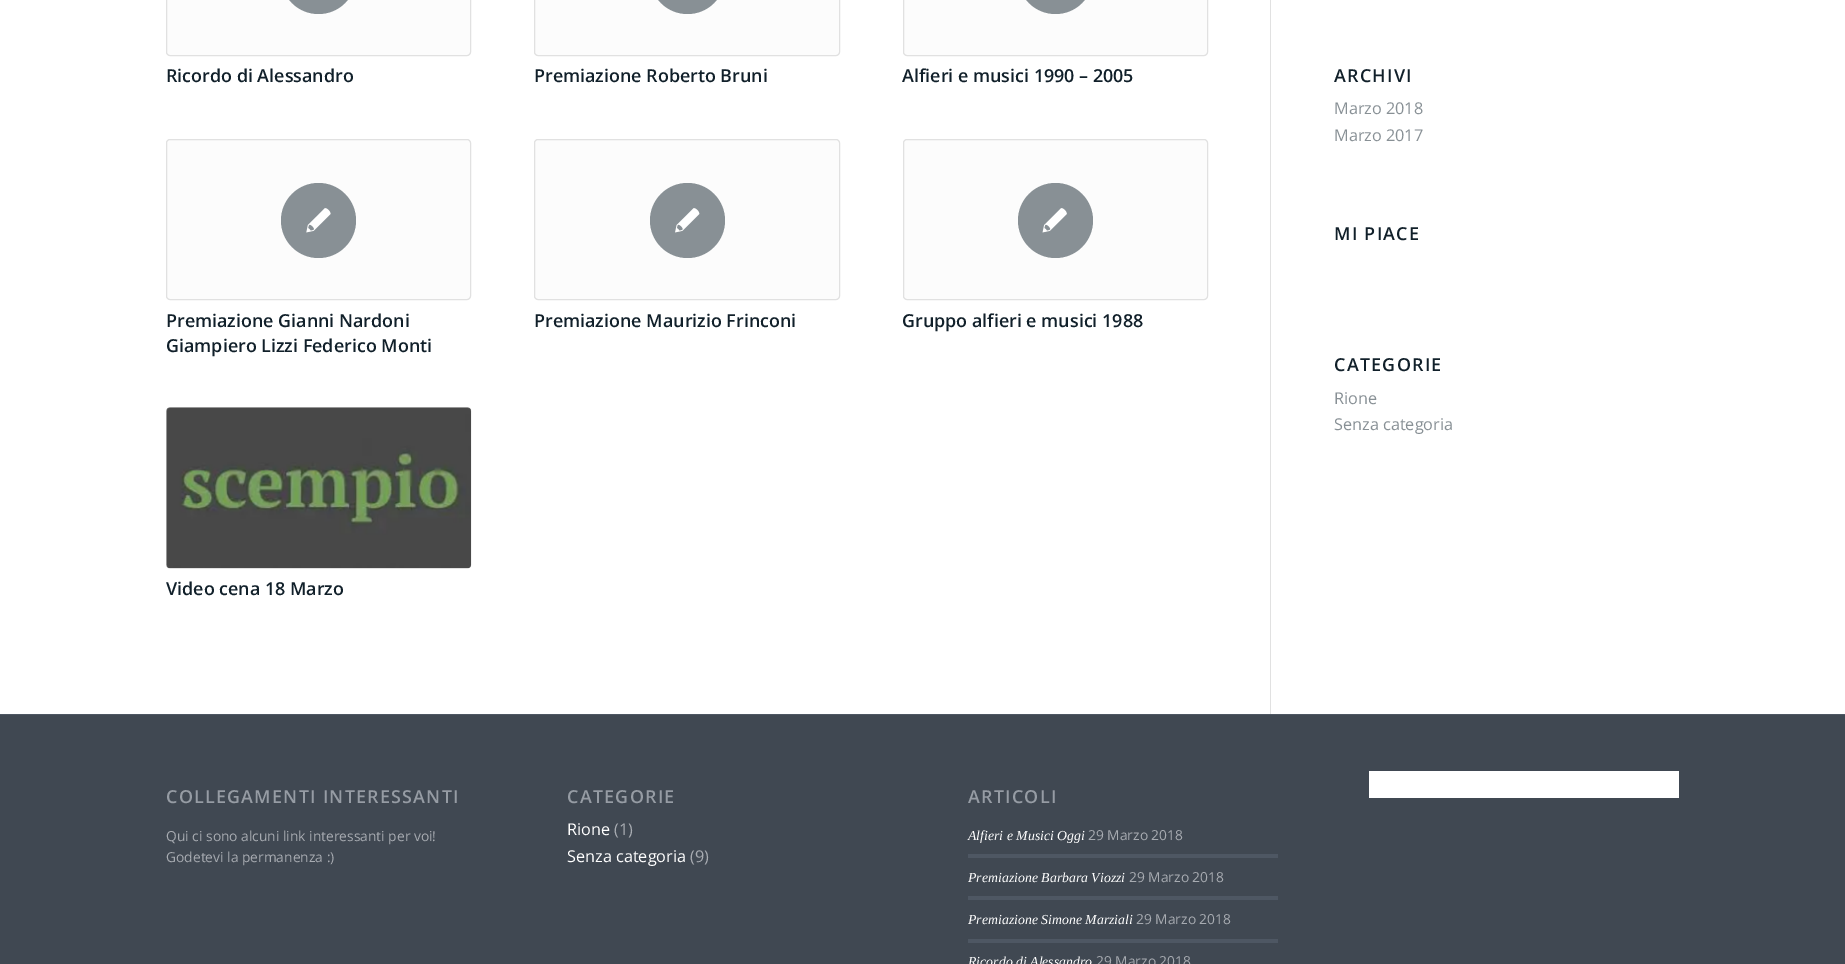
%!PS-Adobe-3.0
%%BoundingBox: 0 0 1845 964
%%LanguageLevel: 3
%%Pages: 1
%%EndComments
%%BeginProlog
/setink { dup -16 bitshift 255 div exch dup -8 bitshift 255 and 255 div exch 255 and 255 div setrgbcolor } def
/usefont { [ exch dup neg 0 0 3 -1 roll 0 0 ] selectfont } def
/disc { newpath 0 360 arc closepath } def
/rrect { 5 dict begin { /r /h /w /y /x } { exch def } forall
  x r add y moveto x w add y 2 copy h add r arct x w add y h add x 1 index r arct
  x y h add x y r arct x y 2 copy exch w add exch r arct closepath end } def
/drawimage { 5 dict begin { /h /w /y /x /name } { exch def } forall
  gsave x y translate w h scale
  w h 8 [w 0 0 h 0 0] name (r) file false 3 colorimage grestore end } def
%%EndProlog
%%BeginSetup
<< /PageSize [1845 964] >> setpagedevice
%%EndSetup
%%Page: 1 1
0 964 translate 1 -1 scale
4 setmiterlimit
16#FFFFFF setink
0 0 1845 964 rectfill
16#E1E1E1 setink
1270 0 1 714 rectfill
16#FCFCFC setink
166.5 -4.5 304 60 3.5 rrect gsave fill grestore
16#E1E1E1 setink
stroke
16#889095 setink
281 -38 75 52 37.5 rrect fill
/OpenSans-SemiBold 17.9 usefont
16#11202A setink
166 82 moveto (Ricordo di Alessandro) show
16#FCFCFC setink
534.5 -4.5 305 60 3.5 rrect gsave fill grestore
16#E1E1E1 setink
stroke
16#889095 setink
650 -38 75 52 37.5 rrect fill
16#11202A setink
534 82 moveto (Premiazione Roberto Bruni) show
16#FCFCFC setink
903.5 -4.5 304 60 3.5 rrect gsave fill grestore
16#E1E1E1 setink
stroke
16#889095 setink
1018 -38 75 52 37.5 rrect fill
16#11202A setink
902 82 moveto (Alfieri e musici 1990 – 2005) show
16#FCFCFC setink
166.5 139.5 304 160 3.5 rrect gsave fill grestore
16#E1E1E1 setink
stroke
16#889095 setink
318.5 220.5 37.5 disc fill
(img1.raw) 306 208 25 25 drawimage
16#11202A setink
166 327 moveto (Premiazione Gianni Nardoni) show
166 352 moveto (Giampiero Lizzi Federico Monti) show
16#FCFCFC setink
534.5 139.5 305 160 3.5 rrect gsave fill grestore
16#E1E1E1 setink
stroke
16#889095 setink
687.5 220.5 37.5 disc fill
(img2.raw) 675 208 25 25 drawimage
16#11202A setink
534 327 moveto (Premiazione Maurizio Frinconi) show
16#FCFCFC setink
903.5 139.5 304 160 3.5 rrect gsave fill grestore
16#E1E1E1 setink
stroke
16#889095 setink
1055.5 220.5 37.5 disc fill
(img3.raw) 1042 208 25 25 drawimage
16#11202A setink
902 327 moveto (Gruppo alfieri e musici 1988) show
16#FCFCFC setink
166 408 305 161 4 rrect fill
(img4.raw) 166 407 306 162 drawimage
16#11202A setink
166 595 moveto (Video cena 18 Marzo) show
1334 82 moveto 1.25 0 (ARCHIVI) ashow
/OpenSans-Regular 16.25 usefont
16#889095 setink
1334 114 moveto (Marzo 2018) show
1334 141 moveto (Marzo 2017) show
/OpenSans-SemiBold 17.9 usefont
16#11202A setink
1334 240 moveto 1.25 0 (MI PIACE) ashow
1334 371 moveto 1.25 0 (CATEGORIE) ashow
/OpenSans-Regular 16.25 usefont
16#889095 setink
1334 404 moveto (Rione) show
1334 430 moveto (Senza categoria) show
[
    [0 715 1845 249 16#404852]
    [0 714 1845 1 16#4E5763]
    [1369 771 310 27 16#FFFFFF]
] { aload pop setink rectfill } forall
/OpenSans-SemiBold 17.9 usefont
16#969CA4 setink
166 803 moveto 1.25 0 (COLLEGAMENTI INTERESSANTI) ashow
/OpenSans-Regular 13.8 usefont
16#A7ABB1 setink
166 841 moveto (Qui ci sono alcuni link interessanti per voi!) show
166 862 moveto (Godetevi la permanenza :\)) show
/OpenSans-SemiBold 17.9 usefont
16#969CA4 setink
567 803 moveto 1.25 0 (CATEGORIE) ashow
/OpenSans-Regular 16.25 usefont
16#FFFFFF setink
567 835 moveto (Rione) show
16#A7ABB1 setink
614 835 moveto (\(1\)) show
16#FFFFFF setink
567 862 moveto (Senza categoria) show
16#A7ABB1 setink
690 862 moveto (\(9\)) show
/OpenSans-SemiBold 17.9 usefont
16#969CA4 setink
968 803 moveto 1.25 0 (ARTICOLI) ashow
/LiberationSerif-Italic 13.8 usefont
16#FFFFFF setink
968 840 moveto (Alfieri e Musici Oggi) show
/OpenSans-Regular 13.8 usefont
16#A7ABB1 setink
1088 840 moveto (29 Marzo 2018) show
16#4E5763 setink
968 854 310 4 rectfill
/LiberationSerif-Italic 13.8 usefont
16#FFFFFF setink
968 882 moveto (Premiazione Barbara Viozzi) show
/OpenSans-Regular 13.8 usefont
16#A7ABB1 setink
1129 882 moveto (29 Marzo 2018) show
16#4E5763 setink
968 896 310 4 rectfill
/LiberationSerif-Italic 13.8 usefont
16#FFFFFF setink
968 924 moveto (Premiazione Simone Marziali) show
/OpenSans-Regular 13.8 usefont
16#A7ABB1 setink
1136 924 moveto (29 Marzo 2018) show
16#4E5763 setink
968 939 310 4 rectfill
/LiberationSerif-Italic 13.8 usefont
16#FFFFFF setink
968 966 moveto (Ricordo di Alessandro) show
/OpenSans-Regular 13.8 usefont
16#A7ABB1 setink
1096 966 moveto (29 Marzo 2018) show
showpage
%%EOF
